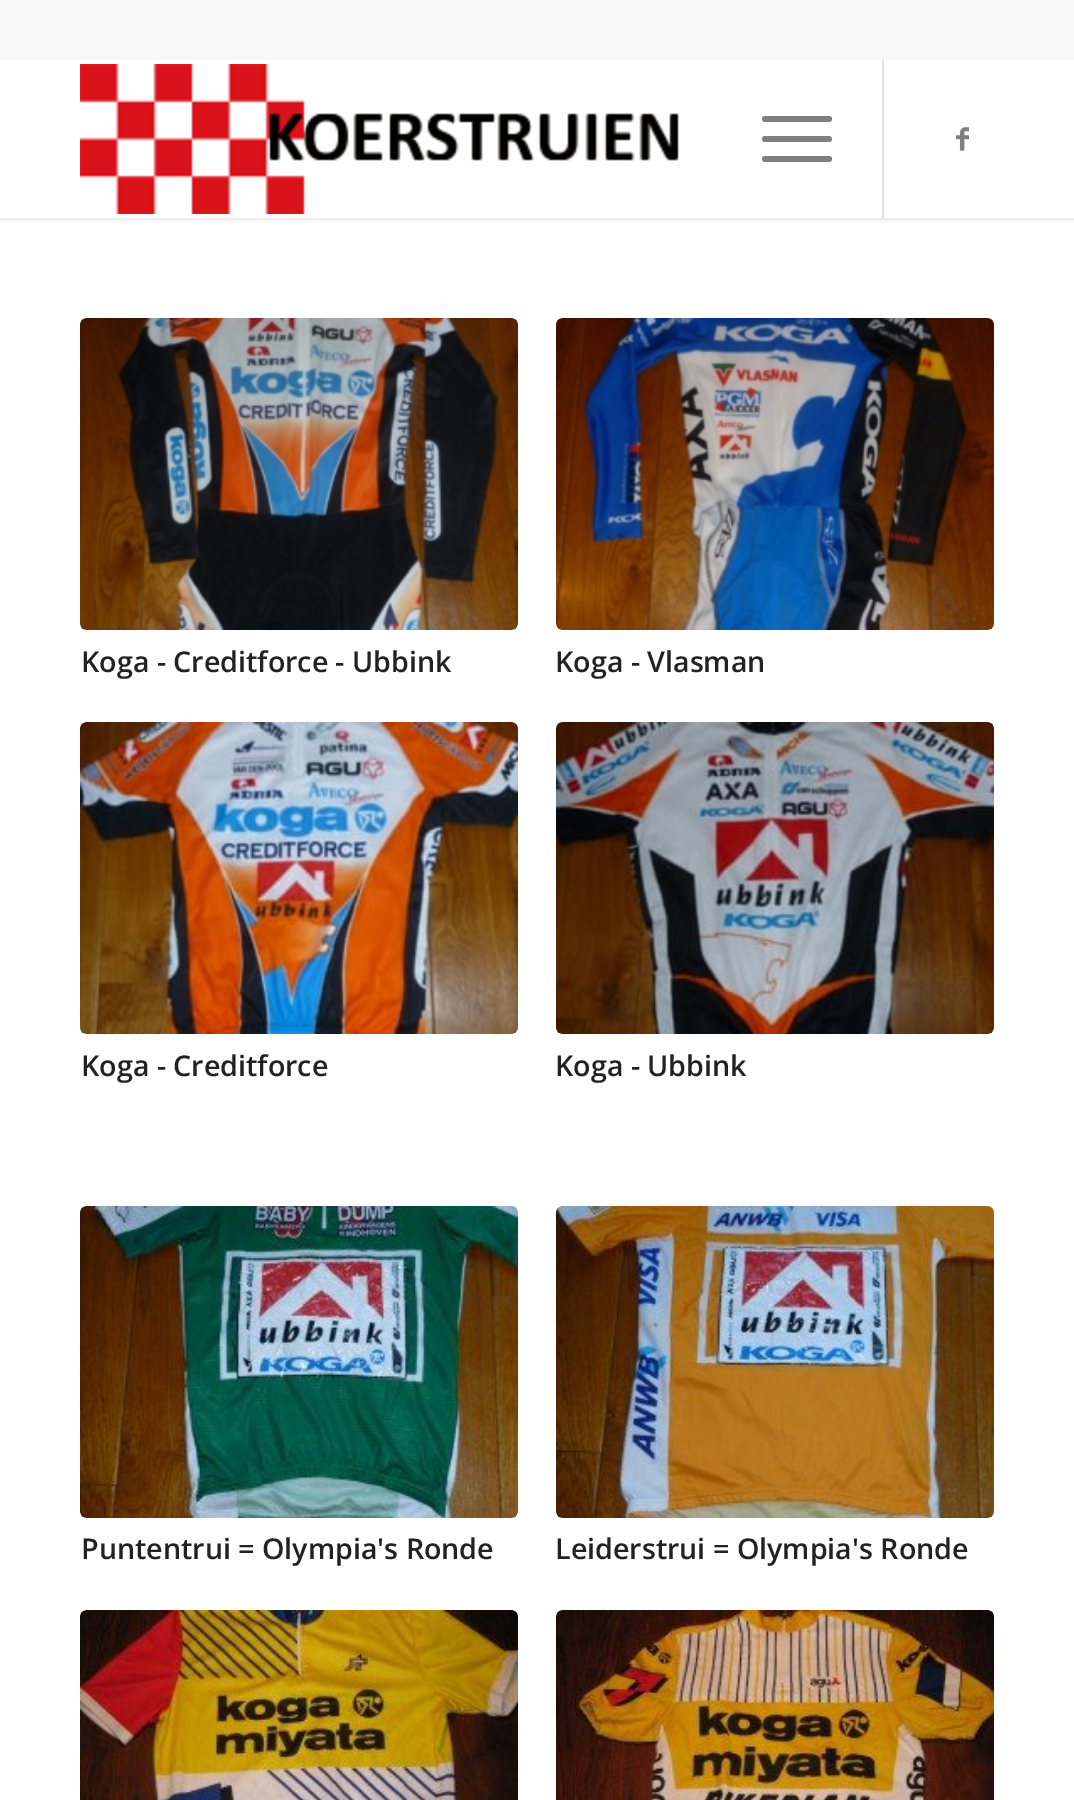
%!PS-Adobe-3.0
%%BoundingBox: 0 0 1074 1800
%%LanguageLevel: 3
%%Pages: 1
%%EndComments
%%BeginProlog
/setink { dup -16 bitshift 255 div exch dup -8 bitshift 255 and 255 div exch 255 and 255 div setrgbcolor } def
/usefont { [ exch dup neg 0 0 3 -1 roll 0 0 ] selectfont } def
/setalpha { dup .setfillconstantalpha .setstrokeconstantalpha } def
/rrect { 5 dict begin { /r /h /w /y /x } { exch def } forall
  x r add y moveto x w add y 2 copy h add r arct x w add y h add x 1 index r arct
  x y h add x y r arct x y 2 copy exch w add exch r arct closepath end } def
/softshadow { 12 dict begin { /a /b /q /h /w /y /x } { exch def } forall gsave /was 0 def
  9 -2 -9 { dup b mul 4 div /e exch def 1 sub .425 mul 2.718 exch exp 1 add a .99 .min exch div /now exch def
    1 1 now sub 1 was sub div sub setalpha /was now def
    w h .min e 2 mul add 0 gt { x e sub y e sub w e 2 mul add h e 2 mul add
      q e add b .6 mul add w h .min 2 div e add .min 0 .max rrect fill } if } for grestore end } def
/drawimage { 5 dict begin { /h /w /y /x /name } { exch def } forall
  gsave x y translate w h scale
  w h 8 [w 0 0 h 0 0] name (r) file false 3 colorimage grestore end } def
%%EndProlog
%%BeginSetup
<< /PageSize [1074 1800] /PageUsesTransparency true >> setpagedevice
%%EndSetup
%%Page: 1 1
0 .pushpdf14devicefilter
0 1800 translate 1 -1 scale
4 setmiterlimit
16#FFFFFF setink
0 0 1074 1800 rectfill
16#000000 setink
-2 -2 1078 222 0 2 0.1 softshadow
[
    [0 60 1074 158 16#FFFFFF]
    [882 58 2 160 16#E1E1E1]
    [0 0 1074 60 16#F8F8F8]
] { aload pop setink rectfill } forall
(img1.raw) 80 64 599 150 drawimage
16#808080 setink
762 136 70 6 3 rrect fill
762 116 70 6 3 rrect fill
762 156 70 6 3 rrect fill
(img2.raw) 956 127 13 24 drawimage
16#FCFCFC setink
80 318 438 312 6 rrect fill
(img3.raw) 80 318 438 312 drawimage
/OpenSans-SemiBold 28.6 usefont
16#222222 setink
81 672 moveto (Koga - Creditforce - Ubbink) show
16#FCFCFC setink
556 318 438 312 6 rrect fill
(img4.raw) 556 318 438 312 drawimage
16#222222 setink
555 672 moveto (Koga - Vlasman) show
16#FCFCFC setink
80 722 438 312 6 rrect fill
(img5.raw) 80 722 438 312 drawimage
16#222222 setink
81 1076 moveto (Koga - Creditforce) show
16#FCFCFC setink
556 722 438 312 6 rrect fill
(img6.raw) 556 722 438 312 drawimage
16#222222 setink
555 1076 moveto (Koga - Ubbink) show
16#FCFCFC setink
80 1206 438 312 6 rrect fill
(img7.raw) 80 1206 438 312 drawimage
16#222222 setink
81 1559 moveto (Puntentrui = Olympia's Ronde) show
16#FCFCFC setink
556 1206 438 312 6 rrect fill
(img8.raw) 556 1206 438 312 drawimage
16#222222 setink
555 1559 moveto (Leiderstrui = Olympia's Ronde) show
16#FCFCFC setink
80 1610 438 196 6 rrect fill
(img9.raw) 80 1610 438 190 drawimage
556 1610 438 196 6 rrect fill
(img10.raw) 556 1610 438 190 drawimage
.poppdf14devicefilter showpage
%%EOF
